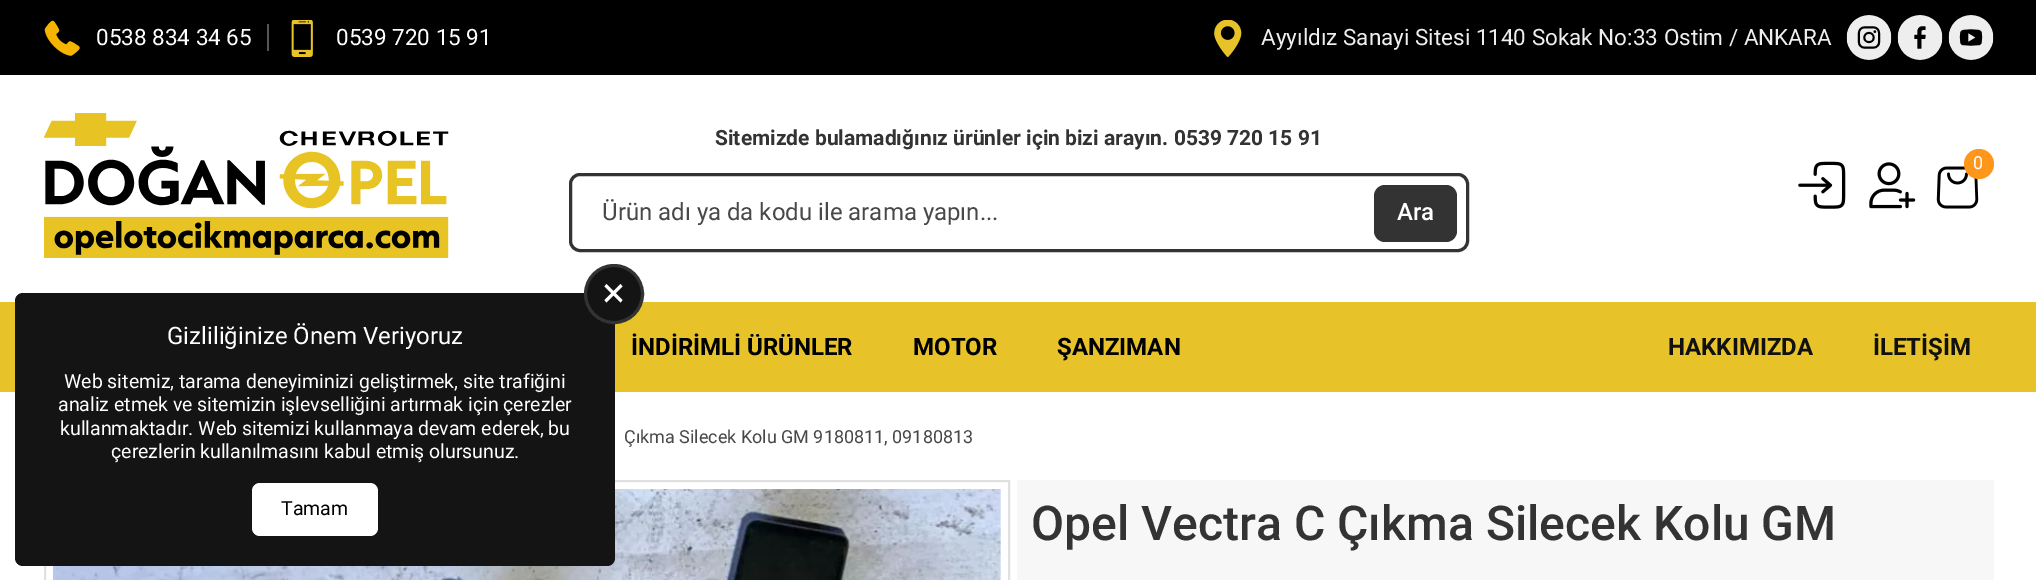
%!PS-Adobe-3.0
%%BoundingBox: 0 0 2036 580
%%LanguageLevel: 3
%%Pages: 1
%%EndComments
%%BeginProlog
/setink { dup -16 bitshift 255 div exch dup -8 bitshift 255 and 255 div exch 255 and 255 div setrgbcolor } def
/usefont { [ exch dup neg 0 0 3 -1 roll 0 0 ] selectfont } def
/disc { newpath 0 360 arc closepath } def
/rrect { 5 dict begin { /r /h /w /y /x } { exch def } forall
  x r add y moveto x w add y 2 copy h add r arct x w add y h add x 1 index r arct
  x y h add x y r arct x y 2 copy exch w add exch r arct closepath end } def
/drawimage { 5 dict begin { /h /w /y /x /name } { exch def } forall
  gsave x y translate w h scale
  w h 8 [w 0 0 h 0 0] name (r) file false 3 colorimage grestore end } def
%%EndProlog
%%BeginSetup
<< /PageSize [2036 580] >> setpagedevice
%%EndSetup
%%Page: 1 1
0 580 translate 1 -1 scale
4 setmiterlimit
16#FFFFFF setink
0 0 2036 580 rectfill
16#000000 setink
0 0 2036 75 rectfill
(img1.raw) 44 20 36 36 drawimage
16#555555 setink
267 24 2 27 rectfill
/Roboto-Regular 22.5 usefont
16#FFFFFF setink
96 45 moveto (0538 834 34 65) show
(img2.raw) 291 20 22 37 drawimage
336 45 moveto (0539 720 15 91) show
(img3.raw) 1214 20 28 37 drawimage
16#EEEEEE setink
1261 45 moveto (Ayyıldız Sanayi Sitesi 1140 Sokak No:33 Ostim / ANKARA) show
(img4.raw) 1846 15 46 45 drawimage
(img5.raw) 1897 15 46 45 drawimage
(img6.raw) 1948 15 46 45 drawimage
(img7.raw) 44 113 405 145 drawimage
/Roboto-Bold 21 usefont
16#333333 setink
715 145 moveto (Sitemizde bulamadığınız ürünler için bizi arayın. 0539 720 15 91) show
3 setlinewidth
570.5 174.5 897 76 9.5 rrect stroke
/Roboto-Regular 24 usefont
16#484848 setink
602 220 moveto (Ürün adı ya da kodu ile arama yapın...) show
16#333333 setink
1374 185 83 57 11 rrect fill
/Roboto-Medium 24 usefont
16#FFFFFF setink
1397 220 moveto (Ara) show
(img8.raw) 1798 161 48 48 drawimage
(img9.raw) 1869 162 47 47 drawimage
(img10.raw) 1936 166 43 43 drawimage
16#FF961C setink
1979 164 15 disc fill
/Roboto-Regular 18 usefont
16#FFFFFF setink
1973 169 moveto (0) show
16#E7C329 setink
0 302 2036 90 rectfill
16#E1E1E1 setink
2 setlinewidth
45 481 964 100 rectstroke
(img11.raw) 53 489 948 91 drawimage
16#141414 setink
15 293 600 273 8 rrect fill
614 294 28.5 disc gsave fill grestore
16#333333 setink
3 setlinewidth
stroke
16#FFFFFF setink
606.5 284 moveto 622.5 300 lineto 620.5 302.5 lineto 604.5 286.5 lineto closepath fill
604.5 300 moveto 620.5 284 lineto 622.5 286.5 lineto 606.5 302.5 lineto closepath fill
/Roboto-Regular 24 usefont
167 344 moveto (Gizliliğinize Önem Veriyoruz) show
/Roboto-Regular 19.5 usefont
[
    [(Web sitemiz, tarama deneyiminizi geliştirmek, site trafiğini) 64 388]
    [(analiz etmek ve sitemizin işlevselliğini artırmak için çerezler) 58 411]
    [(kullanmaktadır. Web sitemizi kullanmaya devam ederek, bu) 60 435]
    [(çerezlerin kullanılmasını kabul etmiş olursunuz.) 111 458]
] { aload pop moveto show } forall
252 483 126 53 8 rrect fill
16#000000 setink
281 515 moveto (Tamam) show
/Roboto-Bold 24 usefont
[
    [(İNDİRİMLİ ÜRÜNLER) 631 355]
    [(MOTOR) 913 355]
    [(ŞANZIMAN) 1057 355]
] { aload pop moveto show } forall
16#111111 setink
1668 355 moveto (HAKKIMIZDA) show
1873 355 moveto (İLETİŞİM) show
/Roboto-Regular 18 usefont
16#484848 setink
624 443 moveto (Çıkma Silecek Kolu GM 9180811, 09180813) show
16#F7F7F7 setink
1017 480 977 100 rectfill
/Roboto-Medium 48 usefont
16#333333 setink
1031 540 moveto (Opel Vectra C Çıkma Silecek Kolu GM) show
showpage
%%EOF
